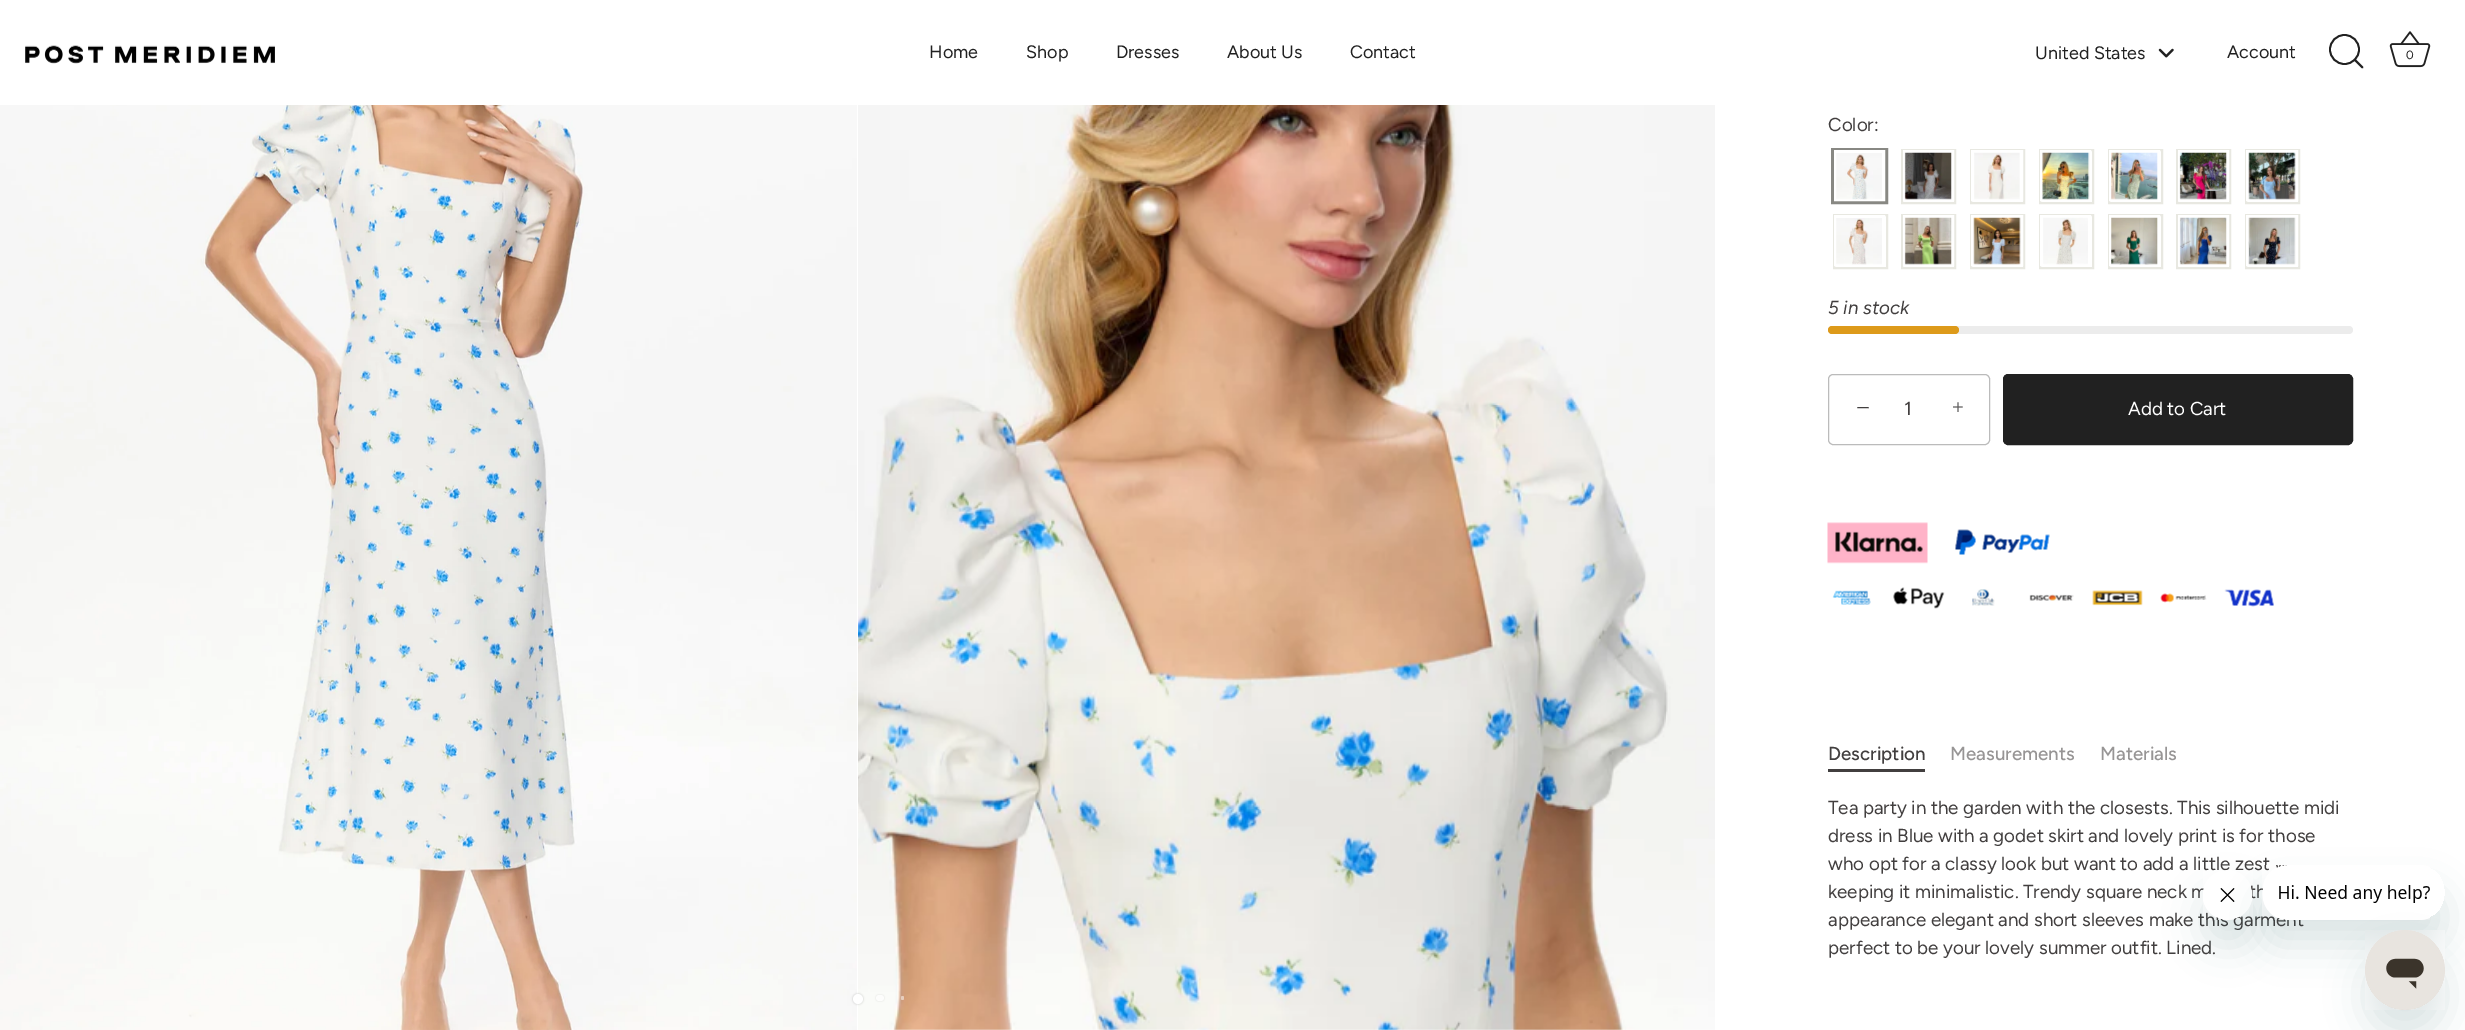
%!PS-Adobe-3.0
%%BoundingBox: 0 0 2465 1030
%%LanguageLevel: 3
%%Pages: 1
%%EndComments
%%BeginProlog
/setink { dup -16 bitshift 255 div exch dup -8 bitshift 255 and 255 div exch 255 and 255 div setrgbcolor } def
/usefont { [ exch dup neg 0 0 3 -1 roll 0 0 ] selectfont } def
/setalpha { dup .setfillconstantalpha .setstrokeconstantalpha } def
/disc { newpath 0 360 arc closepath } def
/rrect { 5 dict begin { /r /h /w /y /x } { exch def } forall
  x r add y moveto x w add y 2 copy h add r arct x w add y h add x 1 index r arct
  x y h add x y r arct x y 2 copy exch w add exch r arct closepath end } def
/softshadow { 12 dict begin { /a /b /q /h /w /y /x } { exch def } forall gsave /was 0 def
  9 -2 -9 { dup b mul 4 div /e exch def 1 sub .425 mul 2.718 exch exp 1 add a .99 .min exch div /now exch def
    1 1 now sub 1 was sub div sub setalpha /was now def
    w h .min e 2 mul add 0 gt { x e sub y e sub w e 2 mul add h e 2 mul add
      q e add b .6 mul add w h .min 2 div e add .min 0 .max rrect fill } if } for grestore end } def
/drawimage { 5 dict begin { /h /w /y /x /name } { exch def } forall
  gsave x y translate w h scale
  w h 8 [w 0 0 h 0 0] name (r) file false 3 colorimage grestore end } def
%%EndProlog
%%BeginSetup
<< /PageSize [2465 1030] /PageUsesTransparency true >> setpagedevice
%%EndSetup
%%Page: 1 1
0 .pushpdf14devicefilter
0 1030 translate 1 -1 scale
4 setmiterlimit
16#FFFFFF setink
0 0 2465 1030 rectfill
(img1.raw) 25 45 250 19 drawimage
/Figtree-Regular 18 usefont
16#212121 setink
[
    [(Home) 929 58]
    [(Shop) 1026 58]
    [(Dresses) 1116 58]
    [(About Us) 1227 58]
    [(Contact) 1350 58]
    [(United States) 2035 59]
] { aload pop moveto show } forall
(img2.raw) 2158 48 16 10 drawimage
2227 58 moveto (Account) show
1.8 setlinewidth
2344.5 49.5 14.5 disc stroke
1 setlinecap
1 setlinejoin
2362.5 67.5 moveto 2354.5 59.5 lineto stroke
(img3.raw) 2389 31 42 37 drawimage
/Figtree-Regular 12 usefont
2406 59 moveto (0) show
(img4.raw) 0 105 857 925 drawimage
(img5.raw) 858 105 857 925 drawimage
16#000000 setink
853 994 10 10 5 1 0.2 softshadow
16#FFFFFF setink
858 999 5 disc fill
16#7D7E7C setink
876 995 8 6 3 1 0.2 softshadow
16#FDFDFC setink
876 995 8 6 3 rrect fill
0.5 setalpha
16#FFFFFF setink
901 996 3 4 1.5 rrect fill
/Figtree-Regular 18.75 usefont
1 setalpha
16#423F3F setink
1828 131 moveto (Color:) show
16#888883 setink
3 setlinewidth
0 setlinecap
0 setlinejoin
1832.5 149.5 54 53 rectstroke
16#FFFFFF setink
1835.5 151.5 48 48 rectstroke
(img6.raw) 1836 153 46 47 drawimage
16#E8E8E1 setink
2 setlinewidth
1902 150 53 53 rectstroke
16#FFFFFF setink
3 setlinewidth
1904.5 151.5 48 48 rectstroke
(img7.raw) 1904 152 48 48 drawimage
16#E8E8E1 setink
2 setlinewidth
1971 150 53 53 rectstroke
16#FFFFFF setink
3 setlinewidth
1972.5 151.5 49 48 rectstroke
(img8.raw) 1974 152 46 48 drawimage
16#E8E8E1 setink
2 setlinewidth
2040 150 53 53 rectstroke
16#FFFFFF setink
3 setlinewidth
2041.5 151.5 48 48 rectstroke
(img9.raw) 2042 152 48 48 drawimage
16#E8E8E1 setink
2 setlinewidth
2109 150 53 53 rectstroke
16#FFFFFF setink
3 setlinewidth
2110.5 151.5 48 48 rectstroke
(img10.raw) 2111 152 47 48 drawimage
16#E8E8E1 setink
2 setlinewidth
2177 150 53 53 rectstroke
16#FFFFFF setink
3 setlinewidth
2179.5 151.5 48 48 rectstroke
(img11.raw) 2179 152 48 48 drawimage
16#E8E8E1 setink
2 setlinewidth
2246 150 53 53 rectstroke
16#FFFFFF setink
3 setlinewidth
2247.5 151.5 49 48 rectstroke
(img12.raw) 2248 152 48 48 drawimage
16#E8E8E1 setink
2 setlinewidth
1834 215 53 53 rectstroke
16#FFFFFF setink
3 setlinewidth
1835.5 216.5 48 48 rectstroke
(img13.raw) 1836 218 46 47 drawimage
16#E8E8E1 setink
2 setlinewidth
1902 215 53 53 rectstroke
16#FFFFFF setink
3 setlinewidth
1904.5 216.5 48 48 rectstroke
(img14.raw) 1904 217 48 48 drawimage
16#E8E8E1 setink
2 setlinewidth
1971 215 53 53 rectstroke
16#FFFFFF setink
3 setlinewidth
1972.5 216.5 49 48 rectstroke
(img15.raw) 1973 217 48 48 drawimage
16#E8E8E1 setink
2 setlinewidth
2040 215 53 53 rectstroke
16#FFFFFF setink
3 setlinewidth
2041.5 216.5 48 48 rectstroke
(img16.raw) 2043 217 45 48 drawimage
16#E8E8E1 setink
2 setlinewidth
2109 215 53 53 rectstroke
16#FFFFFF setink
3 setlinewidth
2110.5 216.5 48 48 rectstroke
(img17.raw) 2111 217 47 48 drawimage
16#E8E8E1 setink
2 setlinewidth
2177 215 53 53 rectstroke
16#FFFFFF setink
3 setlinewidth
2179.5 216.5 48 48 rectstroke
(img18.raw) 2179 217 48 48 drawimage
16#E8E8E1 setink
2 setlinewidth
2246 215 53 53 rectstroke
16#FFFFFF setink
3 setlinewidth
2247.5 216.5 49 48 rectstroke
(img19.raw) 2248 217 48 48 drawimage
/Figtree-Italic 18.75 usefont
16#423F3F setink
1828 314 moveto (5 in stock) show
16#ECECEC setink
1828 326 525 8 4 rrect fill
16#DD9A1A setink
1828 326 131 8 4 rrect fill
16#BBBBBB setink
1 setlinewidth
1828.5 374.5 161 70 4.5 rrect stroke
/LiberationSerif-Regular 25 usefont
16#423F3F setink
1856 416 moveto (−) show
/Figtree-Regular 18.75 usefont
1904 415 moveto 1 0 (1) ashow
/LiberationSerif-Regular 21 usefont
1952 414 moveto (+) show
16#212121 setink
2003.5 374.5 349 70 4.5 rrect gsave fill grestore
stroke
/Figtree-Regular 18.75 usefont
16#FFFFFF setink
2128 415 moveto (Add to Cart) show
(img20.raw) 1827 522 101 42 drawimage
(img21.raw) 1955 529 95 26 drawimage
(img22.raw) 1832 590 39 15 drawimage
(img23.raw) 1893 587 52 22 drawimage
(img24.raw) 1972 589 23 17 drawimage
(img25.raw) 2029 594 45 7 drawimage
(img26.raw) 2092 590 51 16 drawimage
(img27.raw) 2160 593 47 10 drawimage
(img28.raw) 2224 589 50 18 drawimage
/Figtree-Medium 18.75 usefont
16#423F3F setink
1828 760 moveto (Description) show
16#979595 setink
1950 760 moveto (Measurements) show
2100 760 moveto (Materials) show
16#423F3F setink
1828 769 97 3 rectfill
/Figtree-Regular 18.75 usefont
[
    [(Tea party in the garden with the closests. This silhouette midi) 1828 814]
    [(dress in Blue with a godet skirt and lovely print is for those) 1828 842]
    [(who opt for a classy look but want to add a little zest) 1828 870]
    [(keeping it minimalistic. Trendy square neck m) 1828 898]
    [(th) 2249 898]
    [(appearance elegant and short sleeves make this garment) 1828 926]
    [(perfect to be your lovely summer outfit. Lined.) 1828 954]
] { aload pop moveto show } forall
16#17494D setink
2203 895 50 50 25 19 0.15 softshadow
(img30.raw) 2203 870 50 50 drawimage
gsave
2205 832 moveto 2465 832 lineto 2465 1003 lineto 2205 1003 lineto closepath 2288 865 moveto 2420 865 lineto 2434 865 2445 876 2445 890 curveto 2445 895 lineto 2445 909 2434 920 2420 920 curveto 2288 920 lineto 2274 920 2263 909 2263 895 curveto 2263 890 lineto 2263 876 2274 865 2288 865 curveto closepath eoclip newpath
2263 890 182 55 25 19 0.15 softshadow
grestore
(img29.raw) 2262 865 168 55 drawimage
2365 955 80 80 40 19 0.15 softshadow
(img31.raw) 2365 930 80 80 drawimage
.poppdf14devicefilter showpage
%%EOF
